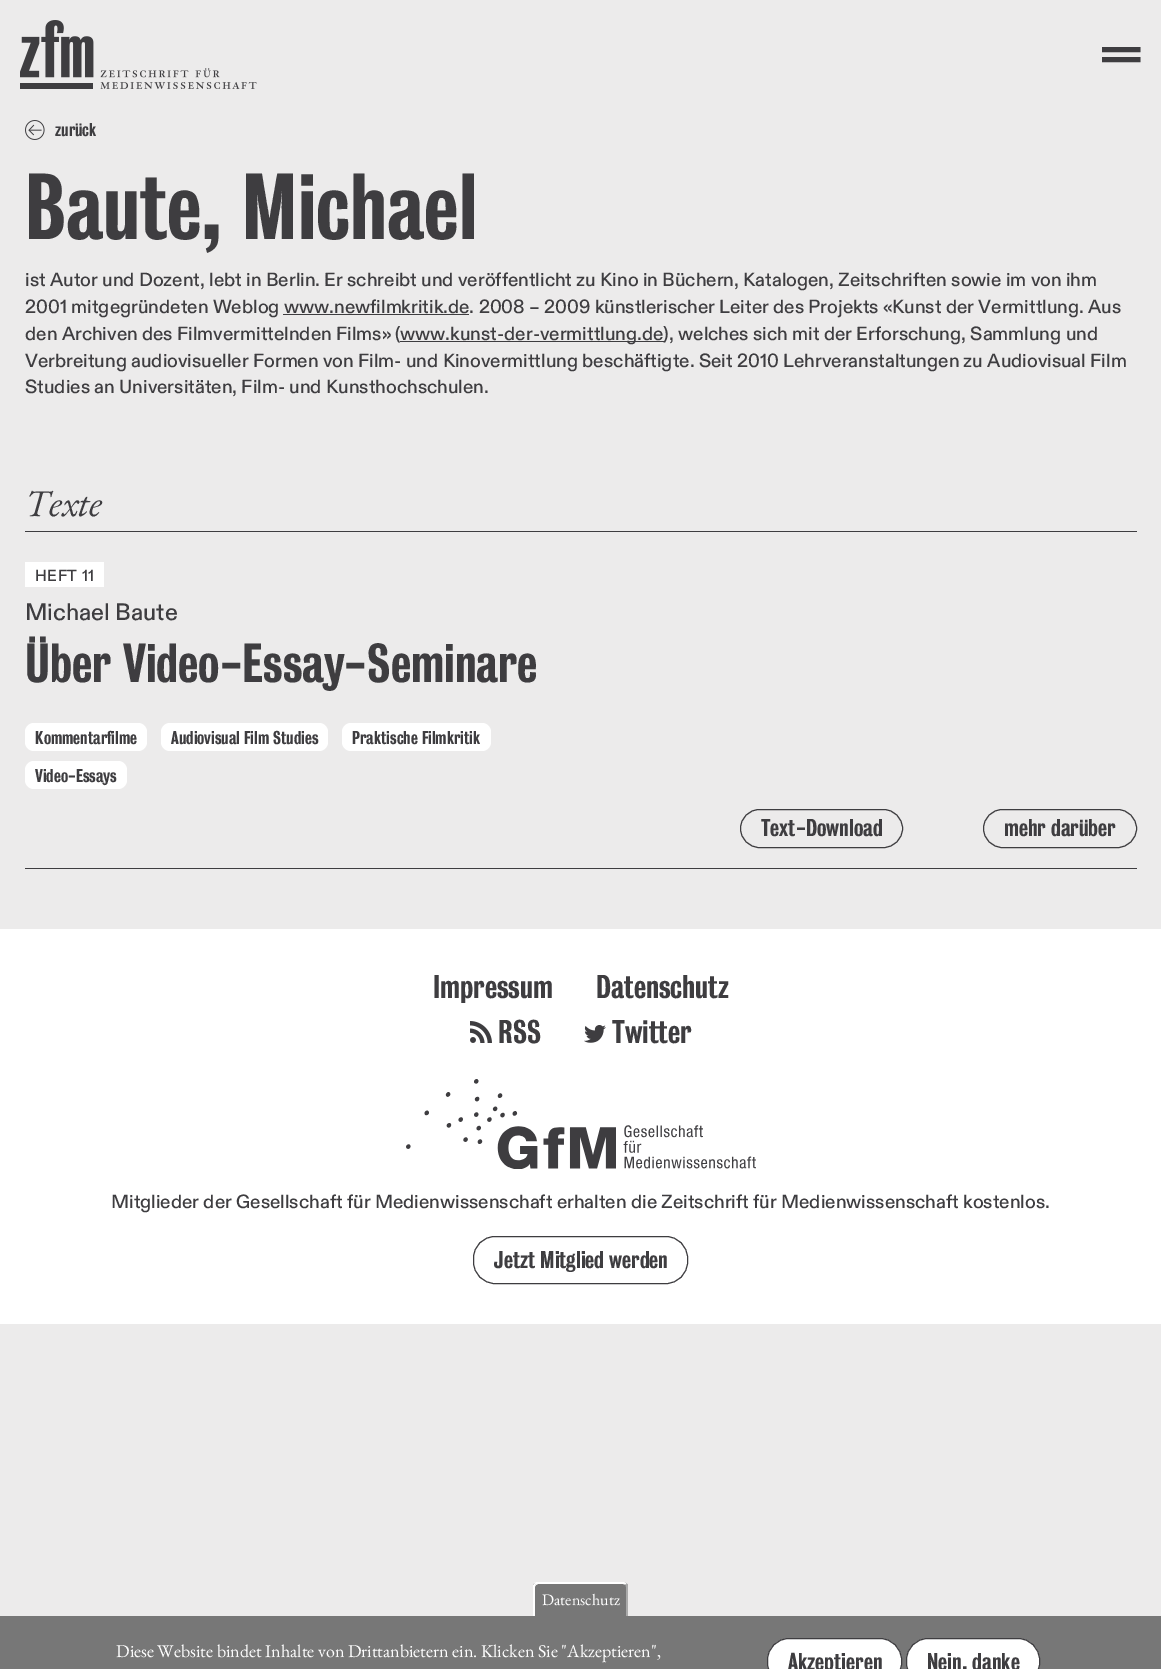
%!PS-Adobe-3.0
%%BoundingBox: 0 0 1161 1669
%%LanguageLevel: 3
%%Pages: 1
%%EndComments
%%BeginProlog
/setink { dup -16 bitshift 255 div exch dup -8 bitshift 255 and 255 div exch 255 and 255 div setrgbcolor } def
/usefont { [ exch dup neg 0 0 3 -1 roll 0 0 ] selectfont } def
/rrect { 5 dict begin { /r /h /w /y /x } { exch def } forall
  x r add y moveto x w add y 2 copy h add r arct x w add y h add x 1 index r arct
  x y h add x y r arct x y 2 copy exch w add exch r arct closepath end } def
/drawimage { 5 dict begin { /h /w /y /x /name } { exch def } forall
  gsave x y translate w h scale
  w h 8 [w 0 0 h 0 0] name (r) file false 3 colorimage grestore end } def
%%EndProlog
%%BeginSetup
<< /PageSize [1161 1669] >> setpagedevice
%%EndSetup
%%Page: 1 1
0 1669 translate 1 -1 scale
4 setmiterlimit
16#ECEBEB setink
0 0 1161 1669 rectfill
(img1.raw) 20 20 237 69 drawimage
16#3E3D40 setink
5 setlinewidth
1140.5 49.5 moveto 1102 49.5 lineto 1140.5 59.5 moveto 1102 59.5 lineto stroke
(img2.raw) 25 120 20 20 drawimage
/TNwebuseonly-Medium 17 usefont
55 136 moveto (zurück) show
/TNwebuseonly-Medium 85.25 usefont
25 239 moveto (Baute, Michael) show
/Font-Medium 19.1 usefont
25 286 moveto (ist Autor und Dozent, lebt in Berlin. Er schreibt und veröffentlicht zu Kino in Büchern, Katalogen, Zeitschriften sowie im von ihm) show
25 313 moveto (2001 mitgegründeten Weblog www.newfilmkritik.de. 2008 – 2009 künstlerischer Leiter des Projekts «Kunst der Vermittlung. Aus) show
283 314 186 1 rectfill
25 340 moveto (den Archiven des Filmvermittelnden Films» \() show
400 341 264 1 rectfill
[
    [(www.kunst-der-vermittlung.de\), welches sich mit der Erforschung, Sammlung und) 400 340]
    [(Verbreitung audiovisueller Formen von Film- und Kinovermittlung beschäftigte. Seit 2010 Lehrveranstaltungen zu Audiovisual Film) 25 367]
    [(Studies an Universitäten, Film- und Kunsthochschulen.) 25 393]
] { aload pop moveto show } forall
25 531 1112 1 rectfill
/EBGaramond-Italic 38 usefont
25 516 moveto (Texte) show
25 868 1112 1 rectfill
16#FFFFFF setink
25 562 79 25 rectfill
/Font-Medium 16 usefont
16#3E3D40 setink
35 581 moveto 0.5 0 (HEFT 11) ashow
/Font-Medium 23.75 usefont
25 620 moveto (Michael Baute) show
/TNwebuseonly-Medium 50 usefont
25 682 moveto (Über Video-Essay-Seminare) show
16#FFFFFF setink
25 723 122 28 9 rrect fill
/TNwebuseonly-Medium 17 usefont
16#3E3D40 setink
35 744 moveto (Kommentarfilme) show
16#FFFFFF setink
161 723 167 28 9 rrect fill
16#3E3D40 setink
171 744 moveto (Audiovisual Film Studies) show
16#FFFFFF setink
342 723 149 28 9 rrect fill
16#3E3D40 setink
352 744 moveto (Praktische Filmkritik) show
16#FFFFFF setink
25 761 102 28 9 rrect fill
16#3E3D40 setink
35 782 moveto (Video-Essays) show
1 setlinewidth
740.5 809.5 162 38 19 rrect stroke
/TNwebuseonly-Medium 22.25 usefont
761 836 moveto (Text-Download) show
983.5 809.5 153 38 19 rrect stroke
1004 836 moveto (mehr darüber) show
16#FFFFFF setink
0 929 1161 395 rectfill
/TNwebuseonly-Medium 30 usefont
16#3E3D40 setink
433 998 moveto (Impressum) show
596 998 moveto (Datenschutz) show
(img3.raw) 470 1021 22 22 drawimage
498 1043 moveto (RSS) show
(img4.raw) 584 1025 22 18 drawimage
612 1043 moveto (Twitter) show
(img5.raw) 406 1079 350 90 drawimage
/Font-Medium 19.1 usefont
111 1208 moveto (Mitglieder der Gesellschaft für Medienwissenschaft erhalten die Zeitschrift für Medienwissenschaft kostenlos.) show
473.5 1236.5 214 47 21.5 rrect stroke
/TNwebuseonly-Medium 22.25 usefont
494 1268 moveto (Jetzt Mitglied werden) show
16#777777 setink
0 1616 1161 53 rectfill
538 1582 moveto 623 1582 lineto 626 1582 628 1584 628 1587 curveto 628 1616 lineto 533 1616 lineto 533 1587 lineto 533 1584 535 1582 538 1582 curveto closepath fill
16#FFFFFF setink
538 1582 moveto 537 1582 535 1582 534 1583 curveto 536 1585 lineto 538 1584 lineto 623 1584 lineto 624 1584 625 1584 625 1585 curveto 627 1583 lineto 626 1583 625 1582 623 1582 curveto closepath fill
16#AAAAAA setink
626 1616 moveto 628 1616 lineto 628 1587 lineto 628 1585.5 627.5 1584.5 626.5 1583.5 curveto 625.5 1585 lineto 626 1585.5 626 1586 626 1587 curveto closepath fill
16#FFFFFF setink
533 1616 moveto 533 1585.5 lineto 534.5 1583.5 lineto 536 1585 lineto 535 1586.5 lineto 535 1616 lineto closepath fill
/EBGaramond-Regular 16 usefont
542 1605 moveto (Datenschutz) show
/EBGaramond-Regular 18 usefont
116 1657 moveto (Diese Website bindet Inhalte von Drittanbietern ein. Klicken Sie "Akzeptieren",) show
767.5 1638.5 134 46 21.5 rrect gsave fill grestore
16#3E3D40 setink
stroke
/TNwebuseonly-Medium 22.25 usefont
788 1670 moveto (Akzeptieren) show
16#FFFFFF setink
906.5 1638.5 133 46 21.5 rrect gsave fill grestore
16#3E3D40 setink
stroke
927 1670 moveto (Nein, danke) show
showpage
%%EOF
